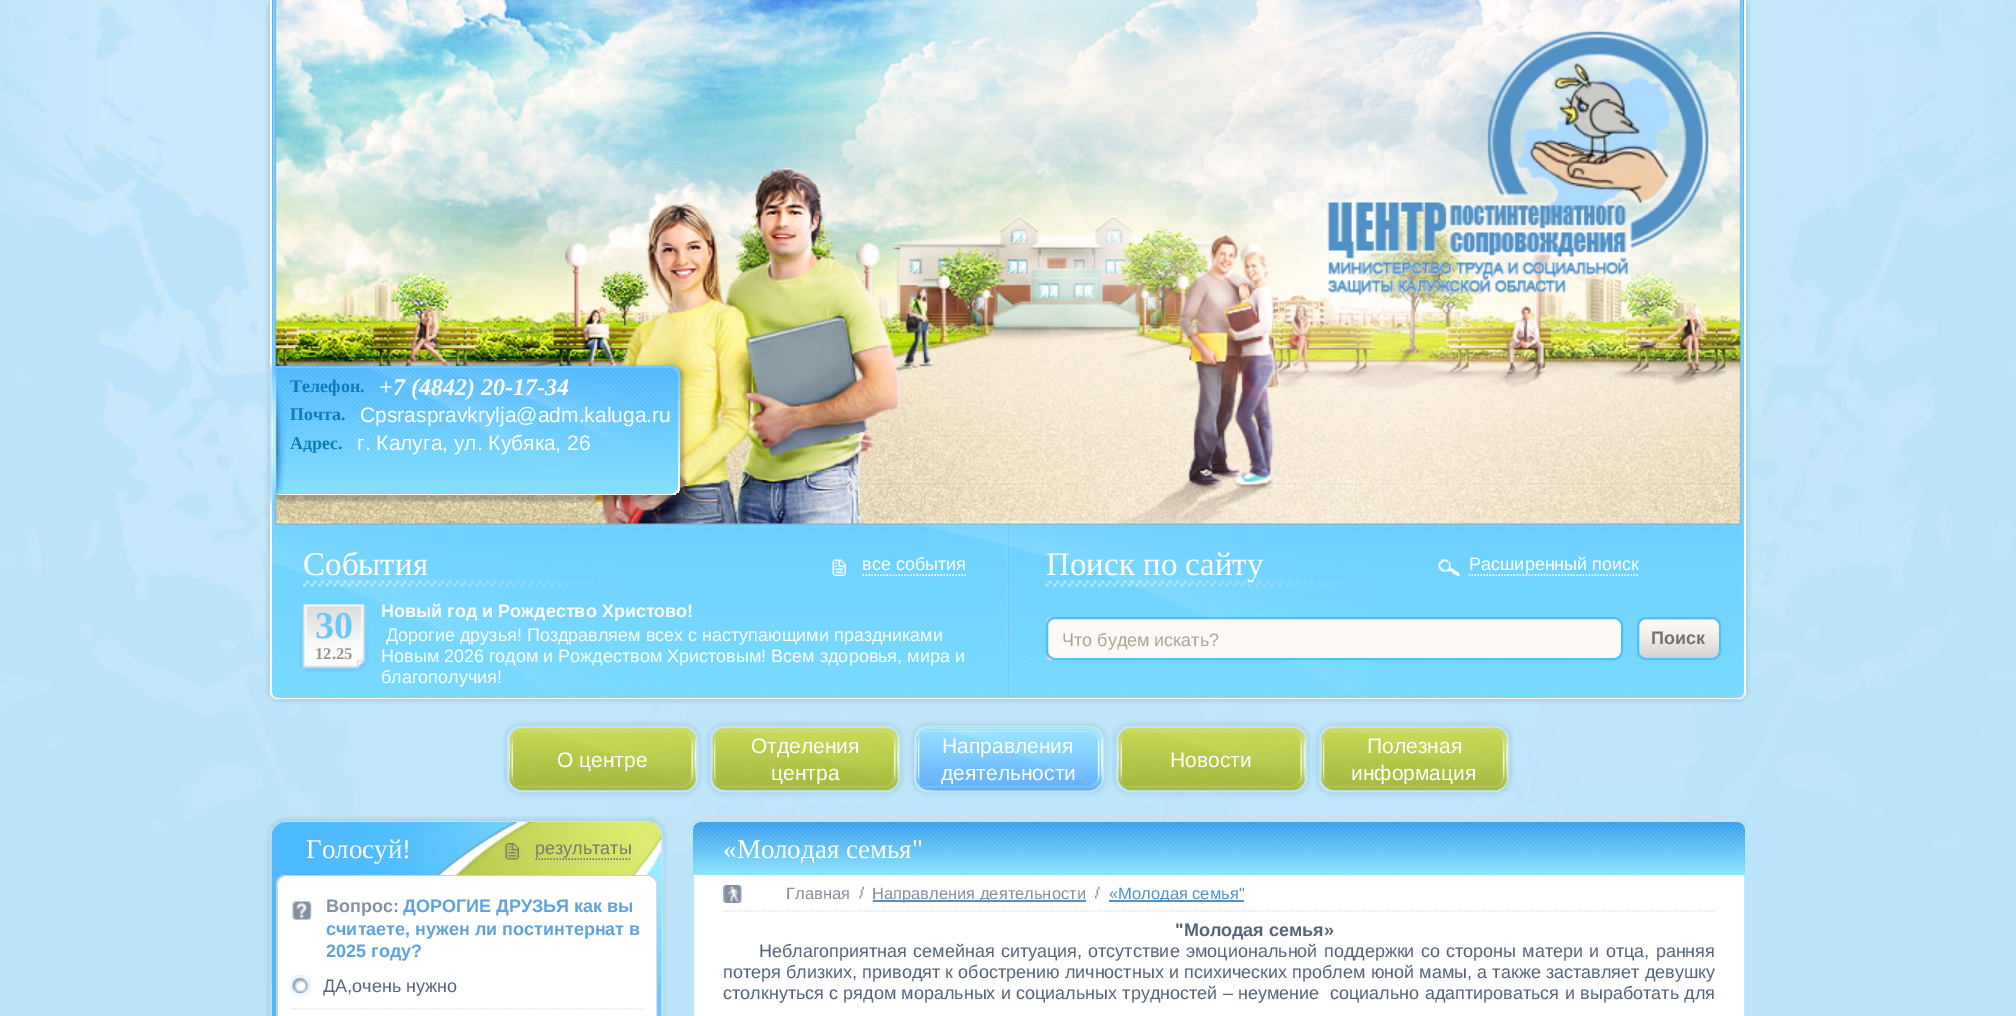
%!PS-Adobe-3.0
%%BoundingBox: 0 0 2016 1016
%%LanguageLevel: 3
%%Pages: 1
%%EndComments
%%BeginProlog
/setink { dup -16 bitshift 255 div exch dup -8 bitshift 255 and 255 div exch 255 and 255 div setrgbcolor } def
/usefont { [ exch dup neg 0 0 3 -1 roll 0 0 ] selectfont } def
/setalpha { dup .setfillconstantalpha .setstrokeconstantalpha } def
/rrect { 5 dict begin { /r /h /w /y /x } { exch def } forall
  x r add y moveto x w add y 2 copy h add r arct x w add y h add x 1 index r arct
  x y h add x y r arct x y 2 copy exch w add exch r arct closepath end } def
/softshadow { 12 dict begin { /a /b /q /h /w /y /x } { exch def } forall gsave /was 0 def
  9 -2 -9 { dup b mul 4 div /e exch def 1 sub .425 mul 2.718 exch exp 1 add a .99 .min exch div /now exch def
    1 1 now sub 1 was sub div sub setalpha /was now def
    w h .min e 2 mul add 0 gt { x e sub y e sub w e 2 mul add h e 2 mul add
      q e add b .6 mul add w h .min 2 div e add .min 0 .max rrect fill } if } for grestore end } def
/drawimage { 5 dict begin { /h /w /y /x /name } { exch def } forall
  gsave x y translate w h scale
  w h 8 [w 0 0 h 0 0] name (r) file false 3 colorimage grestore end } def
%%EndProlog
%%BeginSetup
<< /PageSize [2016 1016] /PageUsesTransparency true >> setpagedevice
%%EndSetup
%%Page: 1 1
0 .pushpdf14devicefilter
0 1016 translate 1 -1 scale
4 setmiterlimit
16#BBE4FA setink
0 0 2016 1016 rectfill
(img1.raw) 0 0 2016 851 drawimage
16#AFD5E9 setink
267 -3 1482 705 11 1.5 1 softshadow
gsave
270 0 moveto 1746 0 lineto 1746 691 lineto 1746 695.5 1742.5 699 1738 699 curveto 278 699 lineto 273.5 699 270 695.5 270 691 curveto closepath clip newpath
gsave 270 0 moveto 1746 0 lineto 1746 698 lineto 270 698 lineto closepath clip newpath
<< /ShadingType 2 /ColorSpace /DeviceRGB /Coords [272 0 272 698] /Extend [true true] /Function << /FunctionType 2 /Domain [0 1] /C0 [0.282 0.71 1] /C1 [0.49 0.867 1] /N 1 >> >> shfill grestore
grestore
16#FFFFFF setink
270 0 moveto 1746 0 lineto 1746 692 lineto 1746 696 1743 699 1738 699 curveto 278 699 lineto 273 699 270 696 270 692 curveto closepath 272 0 moveto 1744 0 lineto 1744 692 lineto 1744 695 1742 698 1738 698 curveto 278 698 lineto 274 698 272 695 272 692 curveto closepath eofill
(img2.raw) 273 0 1470 527 drawimage
(img3.raw) 1324 31 385 265 drawimage
16#413F38 setink
272 366 412 135 11 1.5 0.3 softshadow
gsave 273 366 moveto 672 366 lineto 676.5 366 680 369.5 680 374 curveto 680 487 lineto 680 491.5 676.5 495 672 495 curveto 273 495 lineto closepath clip newpath
<< /ShadingType 2 /ColorSpace /DeviceRGB /Coords [273 366 273 495] /Extend [true true] /Function << /FunctionType 2 /Domain [0 1] /C0 [0.431 0.769 1] /C1 [1 1 1] /N 1 >> >> shfill grestore
gsave 275 368 moveto 670 368 lineto 674.5 368 678 371.5 678 376 curveto 678 486 lineto 678 490.5 674.5 494 670 494 curveto 275 494 lineto closepath clip newpath
<< /ShadingType 2 /ColorSpace /DeviceRGB /Coords [275 368 275 494] /Extend [true true] /Function << /FunctionType 2 /Domain [0 1] /C0 [0.282 0.71 1] /C1 [0.49 0.867 1] /N 1 >> >> shfill grestore
(img4.raw) 274 367 404 127 drawimage
(img5.raw) 367 367 262 106 drawimage
(img6.raw) 270 362 16 145 drawimage
gsave
290 372 90 29 rectclip
/LiberationSerif-Bold 18 usefont
16#0C7DBA setink
290 392 moveto (Телефон.) show
grestore
/LiberationSerif-BoldItalic 24 usefont
16#FFFFFF setink
379 395 moveto (+7 \(4842\) 20-17-34) show
/LiberationSerif-Bold 18 usefont
16#0C7DBA setink
290 420 moveto (Почта.) show
/LiberationSans-Regular 21 usefont
16#FFFFFF setink
360 422 moveto (Cpsraspravkrylja@adm.kaluga.ru) show
/LiberationSerif-Bold 18 usefont
16#0C7DBA setink
290 449 moveto (Адрес.) show
/LiberationSans-Regular 21 usefont
16#FFFFFF setink
357 450 moveto (г. Калуга, ул. Кубяка, 26) show
(img7.raw) 1006 523 5 175 drawimage
(img8.raw) 273 523 1470 175 drawimage
(img9.raw) 273 524 1094 167 drawimage
(img10.raw) 303 580 342 7 drawimage
/LiberationSerif-Regular 33 usefont
303 575 moveto (События) show
(img11.raw) 832 559 14 17 drawimage
/LiberationSans-Regular 18 usefont
862 570 moveto (все события) show
1.5 setlinewidth
[1.5 1.5] 0 setdash
862.5 575 moveto 966 575 lineto stroke
(img12.raw) 299 604 70 68 drawimage
/LiberationSerif-Bold 38 usefont
16#67CAFF setink
315 638 moveto (30) show
/LiberationSerif-Bold 16.5 usefont
16#98938D setink
315 659 moveto (12.25) show
/LiberationSans-Bold 18 usefont
16#FFFFFF setink
381 617 moveto (Новый год и Рождество Христово!) show
/LiberationSans-Regular 18 usefont
[
    [(Дорогие друзья! Поздравляем всех с наступающими праздниками) 386 641]
    [(Новым 2026 годом и Рождеством Христовым! Всем здоровья, мира и) 381 662]
    [(благополучия!) 381 683]
] { aload pop moveto show } forall
(img13.raw) 1045 580 340 7 drawimage
/LiberationSerif-Regular 33 usefont
1046 575 moveto (Поиск по сайту) show
(img14.raw) 1438 559 22 18 drawimage
/LiberationSans-Regular 18 usefont
1469 570 moveto (Расширенный поиск) show
1468.5 575 moveto 1638 575 lineto stroke
gsave
1011 524 732 136 rectclip
1047 618 328 43 4 rrect gsave fill grestore
16#CCCCCC setink
2 setlinewidth
[] 0 setdash
stroke
grestore
(img15.raw) 1639 618 82 41 drawimage
0.07 setalpha
16#000000 setink
1646 620 moveto 1712 620 lineto 1716 620 1719 623 1719 627 curveto 1719 616 1708 618 1700 618 curveto 1657 618 lineto 1649 618 1638 616 1638 627 curveto 1638 623 1641 620 1646 620 curveto closepath fill
1 setalpha
16#4DBFFD setink
2 setlinewidth
[] 0 setdash
1638 618 82 41 8 rrect stroke
/LiberationSans-Bold 18 usefont
16#717171 setink
1651 644 moveto (Поиск) show
16#FDF9F6 setink
1047 618 575 41 8 rrect gsave fill grestore
16#4DBFFD setink
stroke
/LiberationSans-Regular 18 usefont
16#B1A393 setink
1062 646 moveto (Что будем искать?) show
16#AFD5E9 setink
504 723 197 72 17 2 1 softshadow
(img16.raw) 509 727 189 65 drawimage
16#C1E6FA setink
508 727 189 64 13 rrect stroke
(img17.raw) 513 727 183 64 drawimage
/LiberationSans-Regular 21 usefont
16#FFFFFF setink
557 767 moveto (О центре) show
16#AFD5E9 setink
707 723 196 72 17 2 1 softshadow
(img18.raw) 712 727 188 65 drawimage
16#C1E6FA setink
711 727 188 64 13 rrect stroke
(img19.raw) 715 727 184 64 drawimage
16#FFFFFF setink
751 753 moveto (Отделения) show
771 780 moveto (центра) show
16#AFD5E9 setink
911 723 196 72 17 2 1 softshadow
(img20.raw) 916 726 188 65 drawimage
16#C1E6FA setink
915 727 188 64 13 rrect stroke
(img21.raw) 919 727 184 64 drawimage
16#FFFFFF setink
942 753 moveto (Направления) show
941 780 moveto (деятельности) show
16#AFD5E9 setink
1113 723 197 72 17 2 1 softshadow
(img22.raw) 1118 727 189 65 drawimage
16#C1E6FA setink
1117 727 189 64 13 rrect stroke
(img23.raw) 1122 727 183 64 drawimage
16#FFFFFF setink
1170 767 moveto (Новости) show
16#AFD5E9 setink
1316 723 196 72 17 2 1 softshadow
(img24.raw) 1321 727 188 65 drawimage
16#C1E6FA setink
1320 727 188 64 13 rrect stroke
(img25.raw) 1324 727 184 64 drawimage
16#FFFFFF setink
1367 753 moveto (Полезная) show
1351 780 moveto (информация) show
16#AFD5E9 setink
267 818 399 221 18 1.5 1 softshadow
gsave
270 821 393 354 15 rrect clip newpath
gsave 272 821 moveto 662 821 lineto 662 1016 lineto 272 1016 lineto closepath clip newpath
<< /ShadingType 2 /ColorSpace /DeviceRGB /Coords [272 822 662 822] /Extend [true true] /Function << /FunctionType 2 /Domain [0 1] /C0 [0.282 0.714 1] /C1 [0.408 0.808 1] /N 1 >> >> shfill grestore
grestore
16#BFE5FA setink
271 822 391 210 14 rrect stroke
(img26.raw) 271 822 391 194 drawimage
(img27.raw) 271 822 391 164 drawimage
/LiberationSerif-Regular 27 usefont
16#FFFFFF setink
306 858 moveto (Голосуй!) show
(img28.raw) 505 843 14 17 drawimage
/LiberationSans-Regular 18 usefont
16#777777 setink
535 854 moveto (результаты) show
1.5 setlinewidth
[1.5 1.5] 0 setdash
535.5 859 moveto 631.5 859 lineto stroke
16#CFCFCF setink
2 setlinewidth
[] 0 setdash
277 876 379 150 8 rrect stroke
16#FFFFFF setink
279 877 376 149 8 rrect gsave fill grestore
stroke
(img29.raw) 292 901 20 19 drawimage
/LiberationSans-Bold 18 usefont
16#838E9F setink
326 912 moveto (Вопрос:) show
16#5CA2DC setink
[
    [(ДОРОГИЕ ДРУЗЬЯ как вы) 403 912]
    [(считаете, нужен ли постинтернат в) 326 935]
    [(2025 году?) 326 957]
] { aload pop moveto show } forall
(img30.raw) 291 1008 353 2 drawimage
(img31.raw) 289 975 22 21 drawimage
/LiberationSans-Regular 18 usefont
16#56647B setink
323 992 moveto (ДА,очень нужно) show
gsave
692 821 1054 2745 rectclip
16#AFD5E9 setink
689 818 1060 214 11 1.5 1 softshadow
grestore
16#FFFFFF setink
693 822 1052 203 7 rrect gsave fill grestore
16#BFE5FA setink
stroke
gsave 701 822 moveto 1737 822 lineto 1741.5 822 1745 825.5 1745 830 curveto 1745 875 lineto 693 875 lineto 693 830 lineto 693 825.5 696.5 822 701 822 curveto closepath clip newpath
<< /ShadingType 2 /ColorSpace /DeviceRGB /Coords [693 822 693 875] /Extend [true true] /Function << /FunctionType 2 /Domain [0 1] /C0 [0.192 0.612 0.918] /C1 [0.522 0.89 1] /N 1 >> >> shfill grestore
(img32.raw) 693 822 1052 53 drawimage
/LiberationSerif-Regular 27 usefont
16#FFFFFF setink
723 858 moveto («Молодая семья") show
(img33.raw) 723 885 20 18 drawimage
16#E4E4E4 setink
1.5 setlinewidth
[1.5 1.5] 0 setdash
723 911 moveto 1714.5 911 lineto stroke
(img34.raw) 859 886 5 13 drawimage
/LiberationSans-Regular 16.5 usefont
16#838E9F setink
786 899 moveto (Главная) show
(img35.raw) 1095 886 5 13 drawimage
16#5291C5 setink
873 900 213 2 rectfill
16#838E9F setink
872 899 moveto (Направления деятельности) show
16#5291C5 setink
1109 900 135 2 rectfill
1109 899 moveto («Молодая семья") show
/LiberationSans-Bold 18 usefont
16#56647B setink
1175 936 moveto ("Молодая семья») show
/LiberationSans-Regular 18 usefont
759 957 moveto 1.25 0 32 (Неблагоприятная семейная ситуация, отсутствие эмоциональной поддержки со стороны матери и отца, ранняя) widthshow
723 978 moveto 0.2 0 32 (потеря близких, приводят к обострению личностных и психических проблем юной мамы, а также заставляет девушку) widthshow
723 999 moveto 0.25 0 32 (столкнуться с рядом моральных и социальных трудностей – неумение) widthshow
1330 999 moveto 0.5 0 32 (социально адаптироваться и выработать для) widthshow
.poppdf14devicefilter showpage
%%EOF
